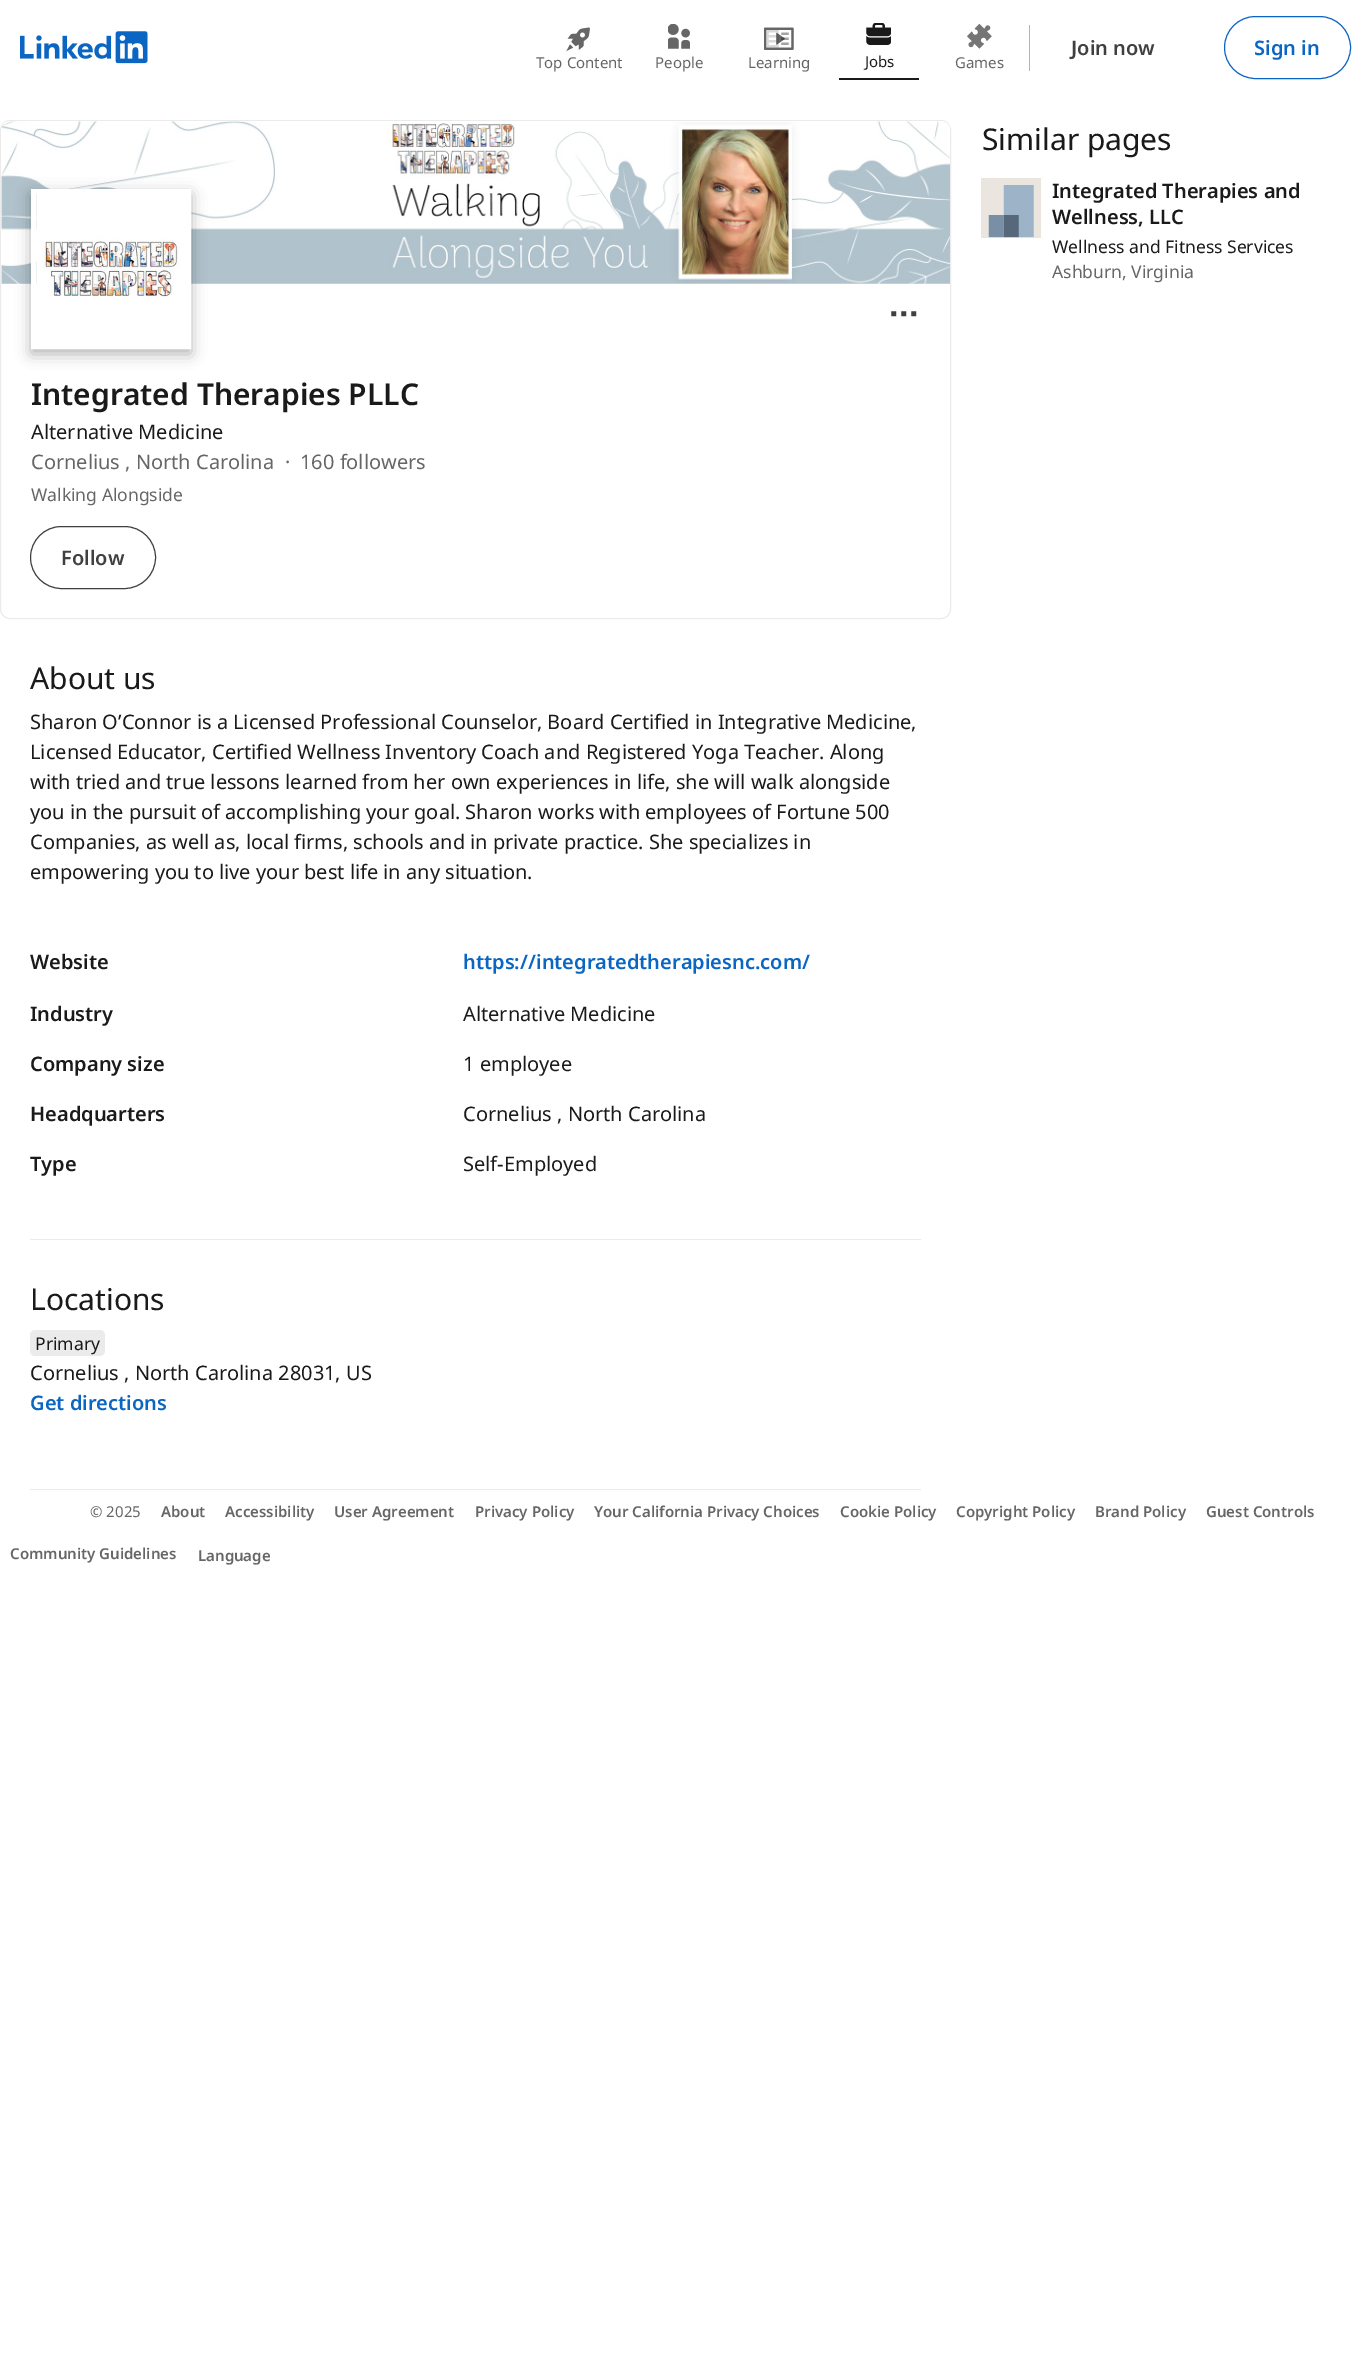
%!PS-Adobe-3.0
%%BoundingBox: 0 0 1370 2371
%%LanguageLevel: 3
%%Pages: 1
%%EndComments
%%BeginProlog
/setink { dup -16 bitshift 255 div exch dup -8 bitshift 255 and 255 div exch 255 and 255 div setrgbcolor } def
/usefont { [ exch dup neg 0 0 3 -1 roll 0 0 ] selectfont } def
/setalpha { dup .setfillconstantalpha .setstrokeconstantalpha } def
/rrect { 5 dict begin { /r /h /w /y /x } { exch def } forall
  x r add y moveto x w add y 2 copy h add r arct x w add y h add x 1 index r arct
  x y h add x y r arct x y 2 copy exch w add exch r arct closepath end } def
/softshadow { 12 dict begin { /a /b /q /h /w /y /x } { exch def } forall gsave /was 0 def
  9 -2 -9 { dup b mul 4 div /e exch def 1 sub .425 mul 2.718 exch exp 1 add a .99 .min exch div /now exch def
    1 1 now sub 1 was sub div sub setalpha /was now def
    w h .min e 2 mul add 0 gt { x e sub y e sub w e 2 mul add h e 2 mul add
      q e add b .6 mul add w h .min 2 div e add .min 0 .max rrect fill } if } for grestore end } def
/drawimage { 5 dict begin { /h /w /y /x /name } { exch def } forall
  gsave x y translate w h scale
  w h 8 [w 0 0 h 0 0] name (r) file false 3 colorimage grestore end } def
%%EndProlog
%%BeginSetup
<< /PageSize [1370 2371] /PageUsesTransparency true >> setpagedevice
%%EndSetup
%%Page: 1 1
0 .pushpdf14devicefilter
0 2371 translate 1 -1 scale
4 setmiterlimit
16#FFFFFF setink
0 0 1370 2371 rectfill
(img1.raw) 20 31 128 33 drawimage
/NotoSans-SemiBold 20 usefont
16#404040 setink
1071 55 moveto (Join now) show
16#0A66C2 setink
1224.5 16.5 126 62 31 rrect stroke
1254 55 moveto (Sign in) show
(img2.raw) 566 27 24 25 drawimage
/NotoSans-Regular 15 usefont
16#666666 setink
536 68 moveto (Top Content) show
(img3.raw) 668 24 22 25 drawimage
655 68 moveto (People) show
(img4.raw) 764 27 30 23 drawimage
748 68 moveto (Learning) show
16#1A1A1A setink
839 78 80 2 rectfill
(img5.raw) 866 23 25 22 drawimage
865 67 moveto (Jobs) show
(img6.raw) 967 24 25 25 drawimage
16#666666 setink
955 68 moveto (Games) show
16#B3B3B3 setink
1029 25 1 46 rectfill
/NotoSans-Regular 30 usefont
16#1A1A1A setink
982 150 moveto (Similar pages) show
16#EAE6DF setink
981 178 60 60 rectfill
(img7.raw) 988 185 46 53 drawimage
/NotoSans-SemiBold 20 usefont
16#1A1A1A setink
1052 198 moveto (Integrated Therapies and) show
1052 224 moveto (Wellness, LLC) show
/NotoSans-Regular 17.5 usefont
1052 253 moveto (Wellness and Fitness Services) show
16#666666 setink
1052 278 moveto (Ashburn, Virginia) show
16#EBEBEB setink
0.5 120.5 950 498 9.5 rrect stroke
(img8.raw) 1 121 949 163 drawimage
gsave
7 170 moveto 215 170 lineto 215 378 lineto 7 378 lineto closepath 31 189 moveto 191 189 lineto 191 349 lineto 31 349 lineto closepath eoclip newpath
16#000000 setink
31 194 160 160 0 7.5 0.3 softshadow
grestore
16#FFFFFF setink
5 setlinewidth
33.5 191.5 155 155 rectstroke
(img9.raw) 36 194 150 103 drawimage
(img10.raw) 891 311 26 6 drawimage
/NotoSans-SemiBold 30 usefont
16#1A1A1A setink
31 405 moveto (Integrated Therapies PLLC) show
/NotoSans-Regular 20 usefont
31 439 moveto (Alternative Medicine) show
16#666666 setink
[
    [(Cornelius , North Carolina) 31 469]
    [(·) 285 469]
    [(160 followers) 300 469]
] { aload pop moveto show } forall
/NotoSans-Regular 17.5 usefont
31 501 moveto (Walking Alongside) show
16#404040 setink
1 setlinewidth
30.5 526.5 125 62 31 rrect stroke
/NotoSans-SemiBold 20 usefont
61 565 moveto (Follow) show
16#EBEBEB setink
30 1239 891 1 rectfill
/NotoSans-Regular 30 usefont
16#1A1A1A setink
30 689 moveto (About us) show
/NotoSans-Regular 20 usefont
[
    [(Sharon O’Connor is a Licensed Professional Counselor, Board Certified in Integrative Medicine,) 30 729]
    [(Licensed Educator, Certified Wellness Inventory Coach and Registered Yoga Teacher. Along) 30 759]
    [(with tried and true lessons learned from her own experiences in life, she will walk alongside) 30 789]
    [(you in the pursuit of accomplishing your goal. Sharon works with employees of Fortune 500) 30 819]
    [(Companies, as well as, local firms, schools and in private practice. She specializes in) 30 849]
    [(empowering you to live your best life in any situation.) 30 879]
] { aload pop moveto show } forall
/NotoSans-SemiBold 20 usefont
30 969 moveto (Website) show
16#0A66C2 setink
463 969 moveto (https://integratedtherapiesnc.com/) show
16#1A1A1A setink
30 1021 moveto (Industry) show
/NotoSans-Regular 20 usefont
463 1021 moveto (Alternative Medicine) show
/NotoSans-SemiBold 20 usefont
30 1071 moveto (Company size) show
/NotoSans-Regular 20 usefont
463 1071 moveto (1 employee) show
/NotoSans-SemiBold 20 usefont
30 1121 moveto (Headquarters) show
/NotoSans-Regular 20 usefont
463 1121 moveto (Cornelius , North Carolina) show
/NotoSans-SemiBold 20 usefont
30 1171 moveto (Type) show
/NotoSans-Regular 20 usefont
463 1171 moveto (Self-Employed) show
16#EBEBEB setink
30 1489 891 1 rectfill
/NotoSans-Regular 30 usefont
16#1A1A1A setink
30 1310 moveto (Locations) show
16#EBEBEB setink
30 1330 75 26 5 rrect fill
/NotoSans-Regular 17.5 usefont
16#1A1A1A setink
35 1350 moveto (Primary) show
/NotoSans-Regular 20 usefont
30 1380 moveto (Cornelius , North Carolina 28031, US) show
/NotoSans-SemiBold 20 usefont
16#0A66C2 setink
30 1410 moveto (Get directions) show
/NotoSans-Regular 15 usefont
16#666666 setink
90 1517 moveto (© 2025) show
/NotoSans-SemiBold 15 usefont
[
    [(About) 161 1517]
    [(Accessibility) 225 1517]
    [(User Agreement) 334 1517]
    [(Privacy Policy) 475 1517]
    [(Your California Privacy Choices) 594 1517]
    [(Cookie Policy) 840 1517]
    [(Copyright Policy) 956 1517]
    [(Brand Policy) 1095 1517]
    [(Guest Controls) 1206 1517]
    [(Community Guidelines) 10 1559]
    [(Language) 198 1561]
] { aload pop moveto show } forall
.poppdf14devicefilter showpage
%%EOF
